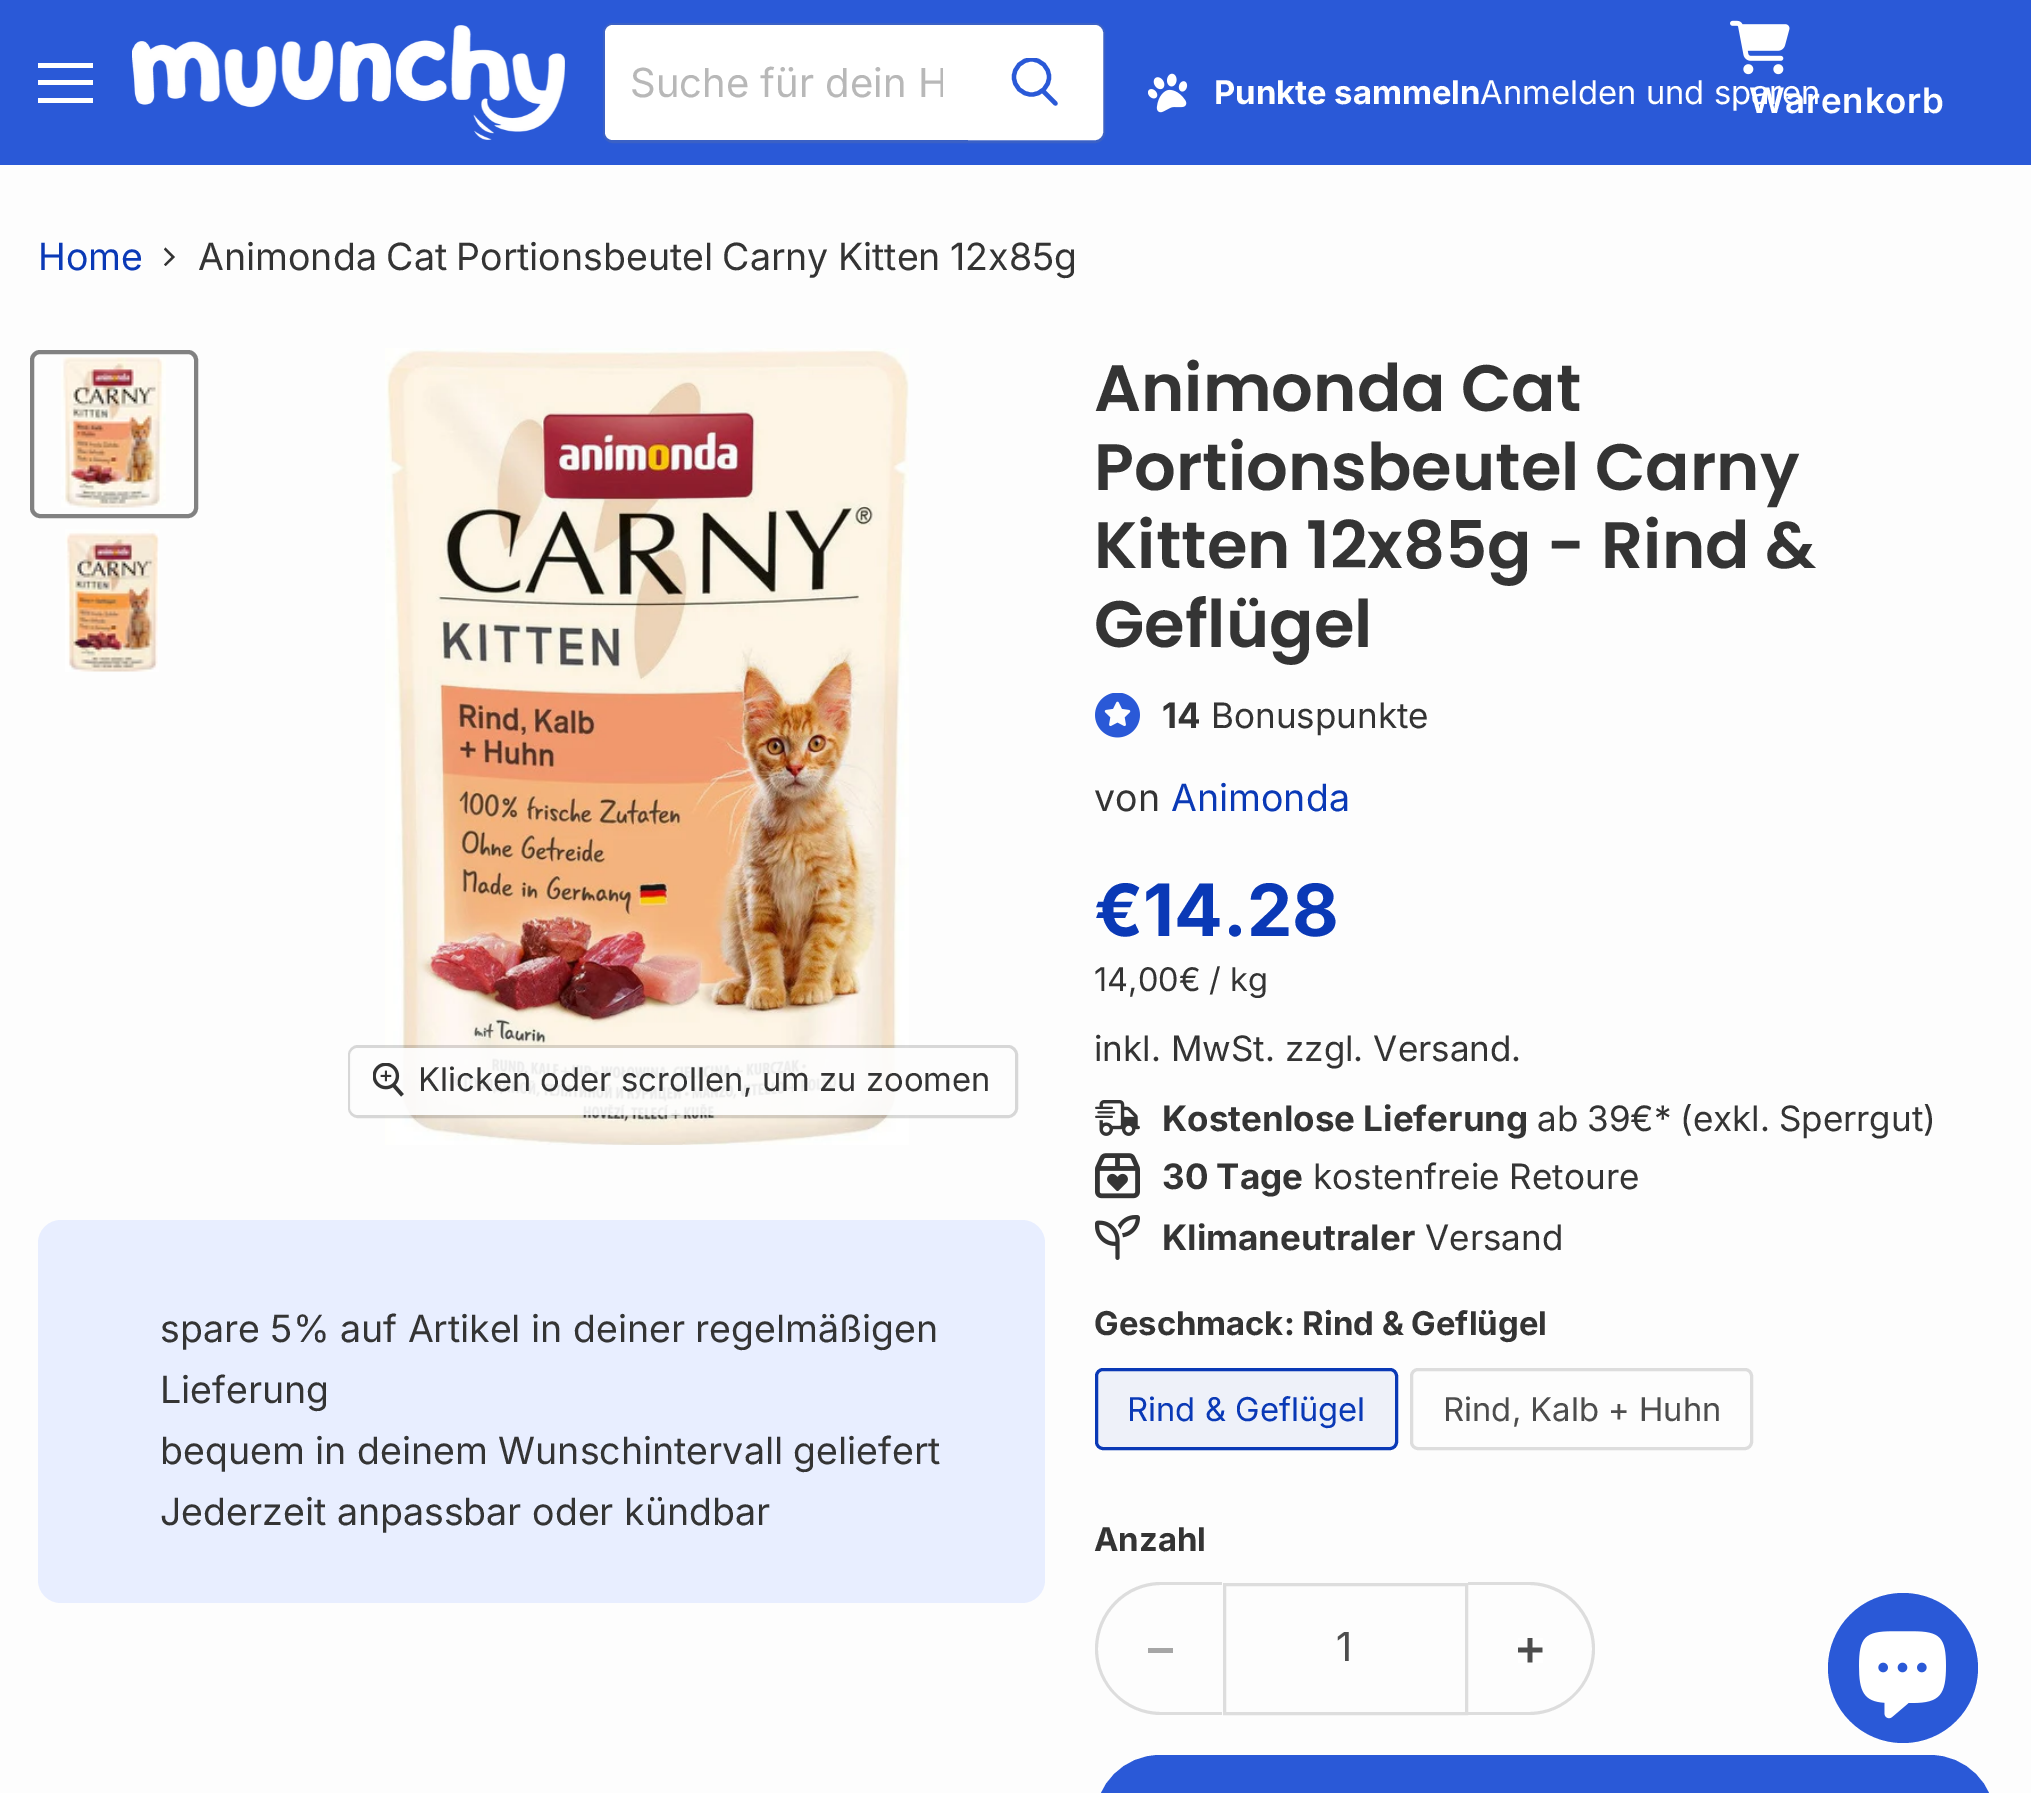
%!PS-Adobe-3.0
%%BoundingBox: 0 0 2031 1793
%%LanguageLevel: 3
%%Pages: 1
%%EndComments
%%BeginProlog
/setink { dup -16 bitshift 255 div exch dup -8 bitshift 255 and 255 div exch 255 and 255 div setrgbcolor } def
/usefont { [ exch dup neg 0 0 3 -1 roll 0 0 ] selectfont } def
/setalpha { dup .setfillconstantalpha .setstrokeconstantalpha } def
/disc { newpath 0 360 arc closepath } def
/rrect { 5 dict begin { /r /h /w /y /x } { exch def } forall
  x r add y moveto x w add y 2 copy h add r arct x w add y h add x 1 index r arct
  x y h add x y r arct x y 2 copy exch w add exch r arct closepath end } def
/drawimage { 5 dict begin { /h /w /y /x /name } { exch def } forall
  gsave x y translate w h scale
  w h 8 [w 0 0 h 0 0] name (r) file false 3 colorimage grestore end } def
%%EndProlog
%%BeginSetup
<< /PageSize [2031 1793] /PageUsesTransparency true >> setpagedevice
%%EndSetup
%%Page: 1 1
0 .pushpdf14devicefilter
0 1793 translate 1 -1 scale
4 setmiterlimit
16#FDFDFD setink
0 0 2031 1793 rectfill
[
    [0 0 2031 165 16#2A59D7]
    [38 63 55 5 16#FFFFFF]
    [38 80 55 5 16#FFFFFF]
    [38 98 55 5 16#FFFFFF]
] { aload pop setink rectfill } forall
(img1.raw) 132 25 433 115 drawimage
0.2 setalpha
16#7F7F7F setink
3 setlinewidth
604.5 24.5 499 117 8.5 rrect stroke
1 setalpha
16#FFFFFF setink
613 25 moveto 968 25 lineto 968 140 lineto 613 140 lineto 608.5 140 605 136.5 605 132 curveto 605 33 lineto 605 28.5 608.5 25 613 25 curveto closepath fill
gsave
630 58 313 50 rectclip
/Inter-Regular 40 usefont
16#B8B8B8 setink
630 97 moveto (Suche für dein H) show
grestore
969.5 26.5 moveto 1095 26.5 lineto 1098.5 26.5 1101.5 29.5 1101.5 33 curveto 1101.5 132 lineto 1101.5 135.5 1098.5 138.5 1095 138.5 curveto 969.5 138.5 lineto closepath gsave fill grestore
stroke
16#2A59D7 setink
4.3 setlinewidth
1 setlinecap
1055.5 103.5 moveto 1043.5 91.5 lineto stroke
gsave
1010 58 50 52 rectclip
0 setlinecap
1031.5 77 17.5 disc stroke
grestore
(img2.raw) 1148 73 40 40 drawimage
/Inter-Bold 32.8 usefont
16#FFFFFF setink
1214 104 moveto (Punkte sammeln) show
/Inter-Regular 32.8 usefont
1480 104 moveto (Anmelden und sparen) show
(img3.raw) 1730 20 60 55 drawimage
/Inter-SemiBold 35 usefont
1749 113 moveto 0.75 0 (Warenkorb) ashow
/Inter-Regular 37.5 usefont
16#0A39B6 setink
38 270 moveto (Home) show
16#343434 setink
164 264.5 moveto 165.5 266 lineto 175 257 lineto 165.5 247.5 lineto 164 249.5 lineto 171.5 257 lineto closepath eofill
198 270 moveto -1 0 32 (Animonda Cat Portionsbeutel Carny Kitten 12x85g) widthshow
16#818181 setink
4 setlinewidth
0 setlinecap
32 352 164 164 8 rrect stroke
(img4.raw) 61 357 105 151 drawimage
(img5.raw) 65 529 94 143 drawimage
(img6.raw) 385 348 524 797 drawimage
0.15 setalpha
16#000000 setink
3 setlinewidth
349.5 1046.5 667 70 8.5 rrect stroke
0.9 setalpha
16#FDFDFD setink
350 1048 665 67 8 rrect fill
1 setalpha
(img7.raw) 373 1063 31 34 drawimage
/Inter-Regular 32.8 usefont
16#343434 setink
418 1091 moveto (Klicken oder scrollen, um zu zoomen) show
16#E8EEFF setink
38 1220 1007 383 23 rrect fill
/Inter-Regular 37.5 usefont
16#343434 setink
[
    [(spare 5% auf Artikel in deiner regelmäßigen) 160 1342]
    [(Lieferung) 160 1403]
    [(bequem in deinem Wunschintervall geliefert) 160 1464]
    [(Jederzeit anpassbar oder kündbar) 160 1525]
] { aload pop moveto show } forall
/Poppins-SemiBold 65.6 usefont
[
    [(Animonda Cat) 1094 411]
    [(Portionsbeutel Carny) 1094 490]
    [(Kitten 12x85g - Rind &) 1094 568]
    [(Geflügel) 1094 647]
] { aload pop moveto show } forall
(img8.raw) 1095 693 45 45 drawimage
/Inter-Bold 35 usefont
1162 728 moveto (14) show
/Inter-Regular 35 usefont
1211 728 moveto (Bonuspunkte) show
/Inter-Regular 37.5 usefont
1094 811 moveto (von) show
16#0A39B6 setink
1171 811 moveto (Animonda) show
/Inter-Bold 72 usefont
1094 936 moveto (€14.28) show
/Inter-Regular 32.5 usefont
16#343434 setink
1094 991 moveto (14,00€ / kg) show
/Inter-Regular 35 usefont
1094 1061 moveto (inkl. MwSt. zzgl. Versand.) show
(img9.raw) 1095 1100 45 36 drawimage
/Inter-Bold 35 usefont
1162 1131 moveto (Kostenlose Lieferung) show
/Inter-Regular 35 usefont
1537 1131 moveto -1 0 32 (ab 39€* \(exkl. Sperrgut\)) widthshow
(img10.raw) 1095 1153 45 46 drawimage
/Inter-Bold 35 usefont
1162 1189 moveto (30 Tage) show
/Inter-Regular 35 usefont
1313 1189 moveto (kostenfreie Retoure) show
(img11.raw) 1095 1215 45 45 drawimage
/Inter-Bold 35 usefont
1162 1250 moveto (Klimaneutraler) show
/Inter-Regular 35 usefont
1425 1250 moveto (Versand) show
/Inter-Bold 32.8 usefont
1094 1335 moveto (Geschmack: Rind & Geflügel) show
16#EEF1F9 setink
1096.5 1369.5 300 79 6.5 rrect gsave fill grestore
16#0A39B6 setink
stroke
/Inter-Regular 32.8 usefont
1127 1421 moveto (Rind & Geflügel) show
16#DDDDDD setink
1411.5 1369.5 340 79 6.5 rrect stroke
16#4D4D4D setink
1443 1421 moveto (Rind, Kalb + Huhn) show
/Inter-Bold 32.8 usefont
16#343434 setink
1094 1551 moveto (Anzahl) show
16#DDDDDD setink
1161 1582 moveto 1222 1582 lineto 1222 1715 lineto 1161 1715 lineto 1125 1715 1095 1685 1095 1649 curveto 1095 1612 1125 1582 1161 1582 curveto closepath 1161 1585 moveto 1222 1585 lineto 1222 1712 lineto 1161 1712 lineto 1126 1712 1098 1684 1098 1649 curveto 1098 1614 1126 1585 1161 1585 curveto closepath eofill
16#A6A6A6 setink
1148 1648 25 5 rectfill
16#DDDDDD setink
1224.5 1584.5 242 129 rectstroke
/Inter-Regular 40 usefont
16#4D4D4D setink
1336 1661 moveto (1) show
16#DDDDDD setink
1468 1582 moveto 1529 1582 lineto 1565 1582 1595 1612 1595 1649 curveto 1595 1685 1565 1715 1529 1715 curveto 1468 1715 lineto closepath 1468 1585 moveto 1529 1585 lineto 1564 1585 1592 1614 1592 1649 curveto 1592 1684 1564 1712 1529 1712 curveto 1468 1712 lineto closepath eofill
(img12.raw) 1518 1638 25 25 drawimage
16#2A59D7 setink
1096.5 1756.5 897 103 63.5 rrect gsave fill grestore
stroke
1903 1668 75 disc fill
(img13.raw) 1859 1631 87 88 drawimage
.poppdf14devicefilter showpage
%%EOF
